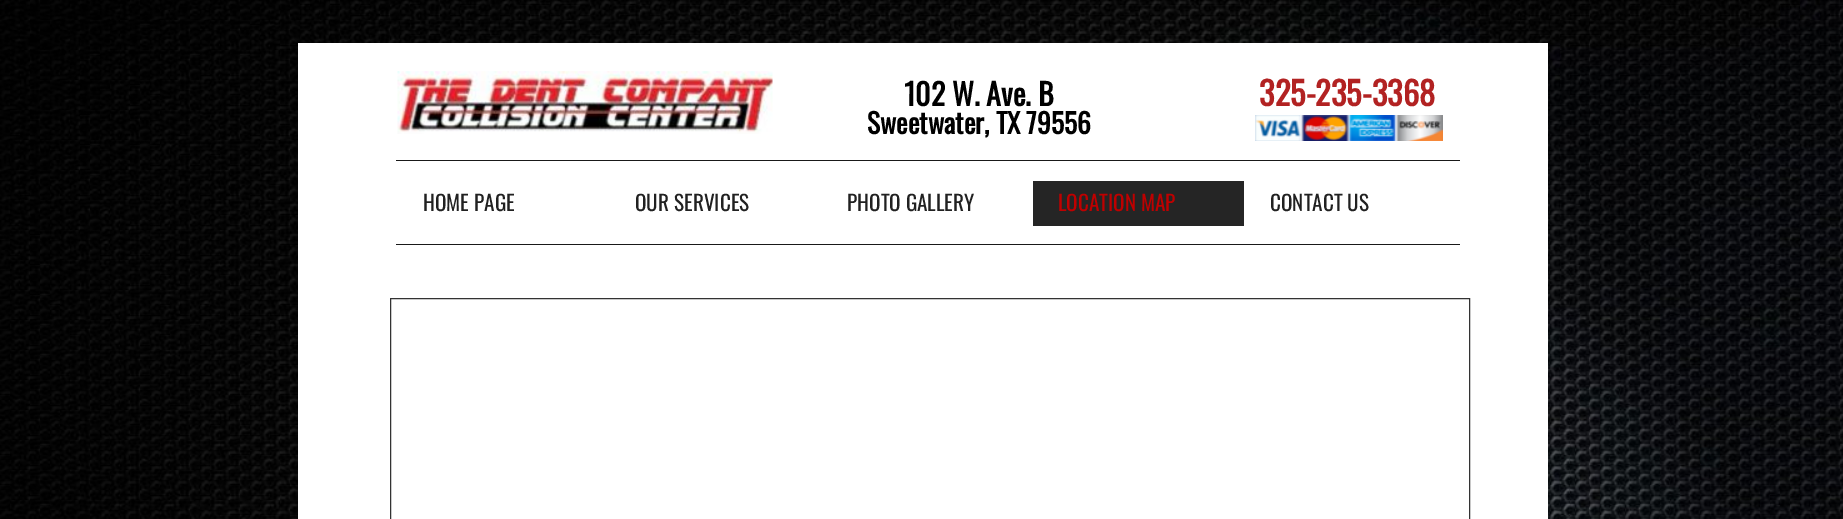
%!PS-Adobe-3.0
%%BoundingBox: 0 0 1843 519
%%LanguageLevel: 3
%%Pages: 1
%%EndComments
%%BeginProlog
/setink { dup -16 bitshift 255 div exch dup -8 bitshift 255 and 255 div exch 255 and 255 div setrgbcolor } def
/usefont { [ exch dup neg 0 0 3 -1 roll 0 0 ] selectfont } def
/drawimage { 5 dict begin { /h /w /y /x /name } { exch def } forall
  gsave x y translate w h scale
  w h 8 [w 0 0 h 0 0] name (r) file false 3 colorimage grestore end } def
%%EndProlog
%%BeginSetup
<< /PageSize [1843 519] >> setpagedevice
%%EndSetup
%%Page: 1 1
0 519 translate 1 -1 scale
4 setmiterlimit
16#FFFFFF setink
0 0 1843 519 rectfill
(img1.raw) 0 0 1843 519 drawimage
298 43 1250 476 rectfill
(img2.raw) 397 71 376 63 drawimage
/Oswald-Bold 30 usefont
16#000000 setink
904 106 moveto (102 W. Ave. B) show
/Oswald-Bold 32.5 usefont
16#B22222 setink
1259 106 moveto (325-235-3368) show
/Oswald-Bold 27.5 usefont
16#000000 setink
867 134 moveto (Sweetwater, TX 79556) show
(img3.raw) 1255 115 188 26 drawimage
16#191919 setink
396 160 1064 1 rectfill
/Oswald-Regular 21.25 usefont
16#212121 setink
[
    [(HOME PAGE) 423 211]
    [(OUR SERVICES) 635 211]
    [(PHOTO GALLERY) 847 211]
] { aload pop moveto show } forall
16#252525 setink
1033 181 211 45 rectfill
16#BF0000 setink
1058 211 moveto (LOCATION MAP) show
16#212121 setink
1270 211 moveto (CONTACT US) show
16#191919 setink
396 244 1064 1 rectfill
16#333333 setink
390.5 298.5 1079 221 rectstroke
showpage
%%EOF
